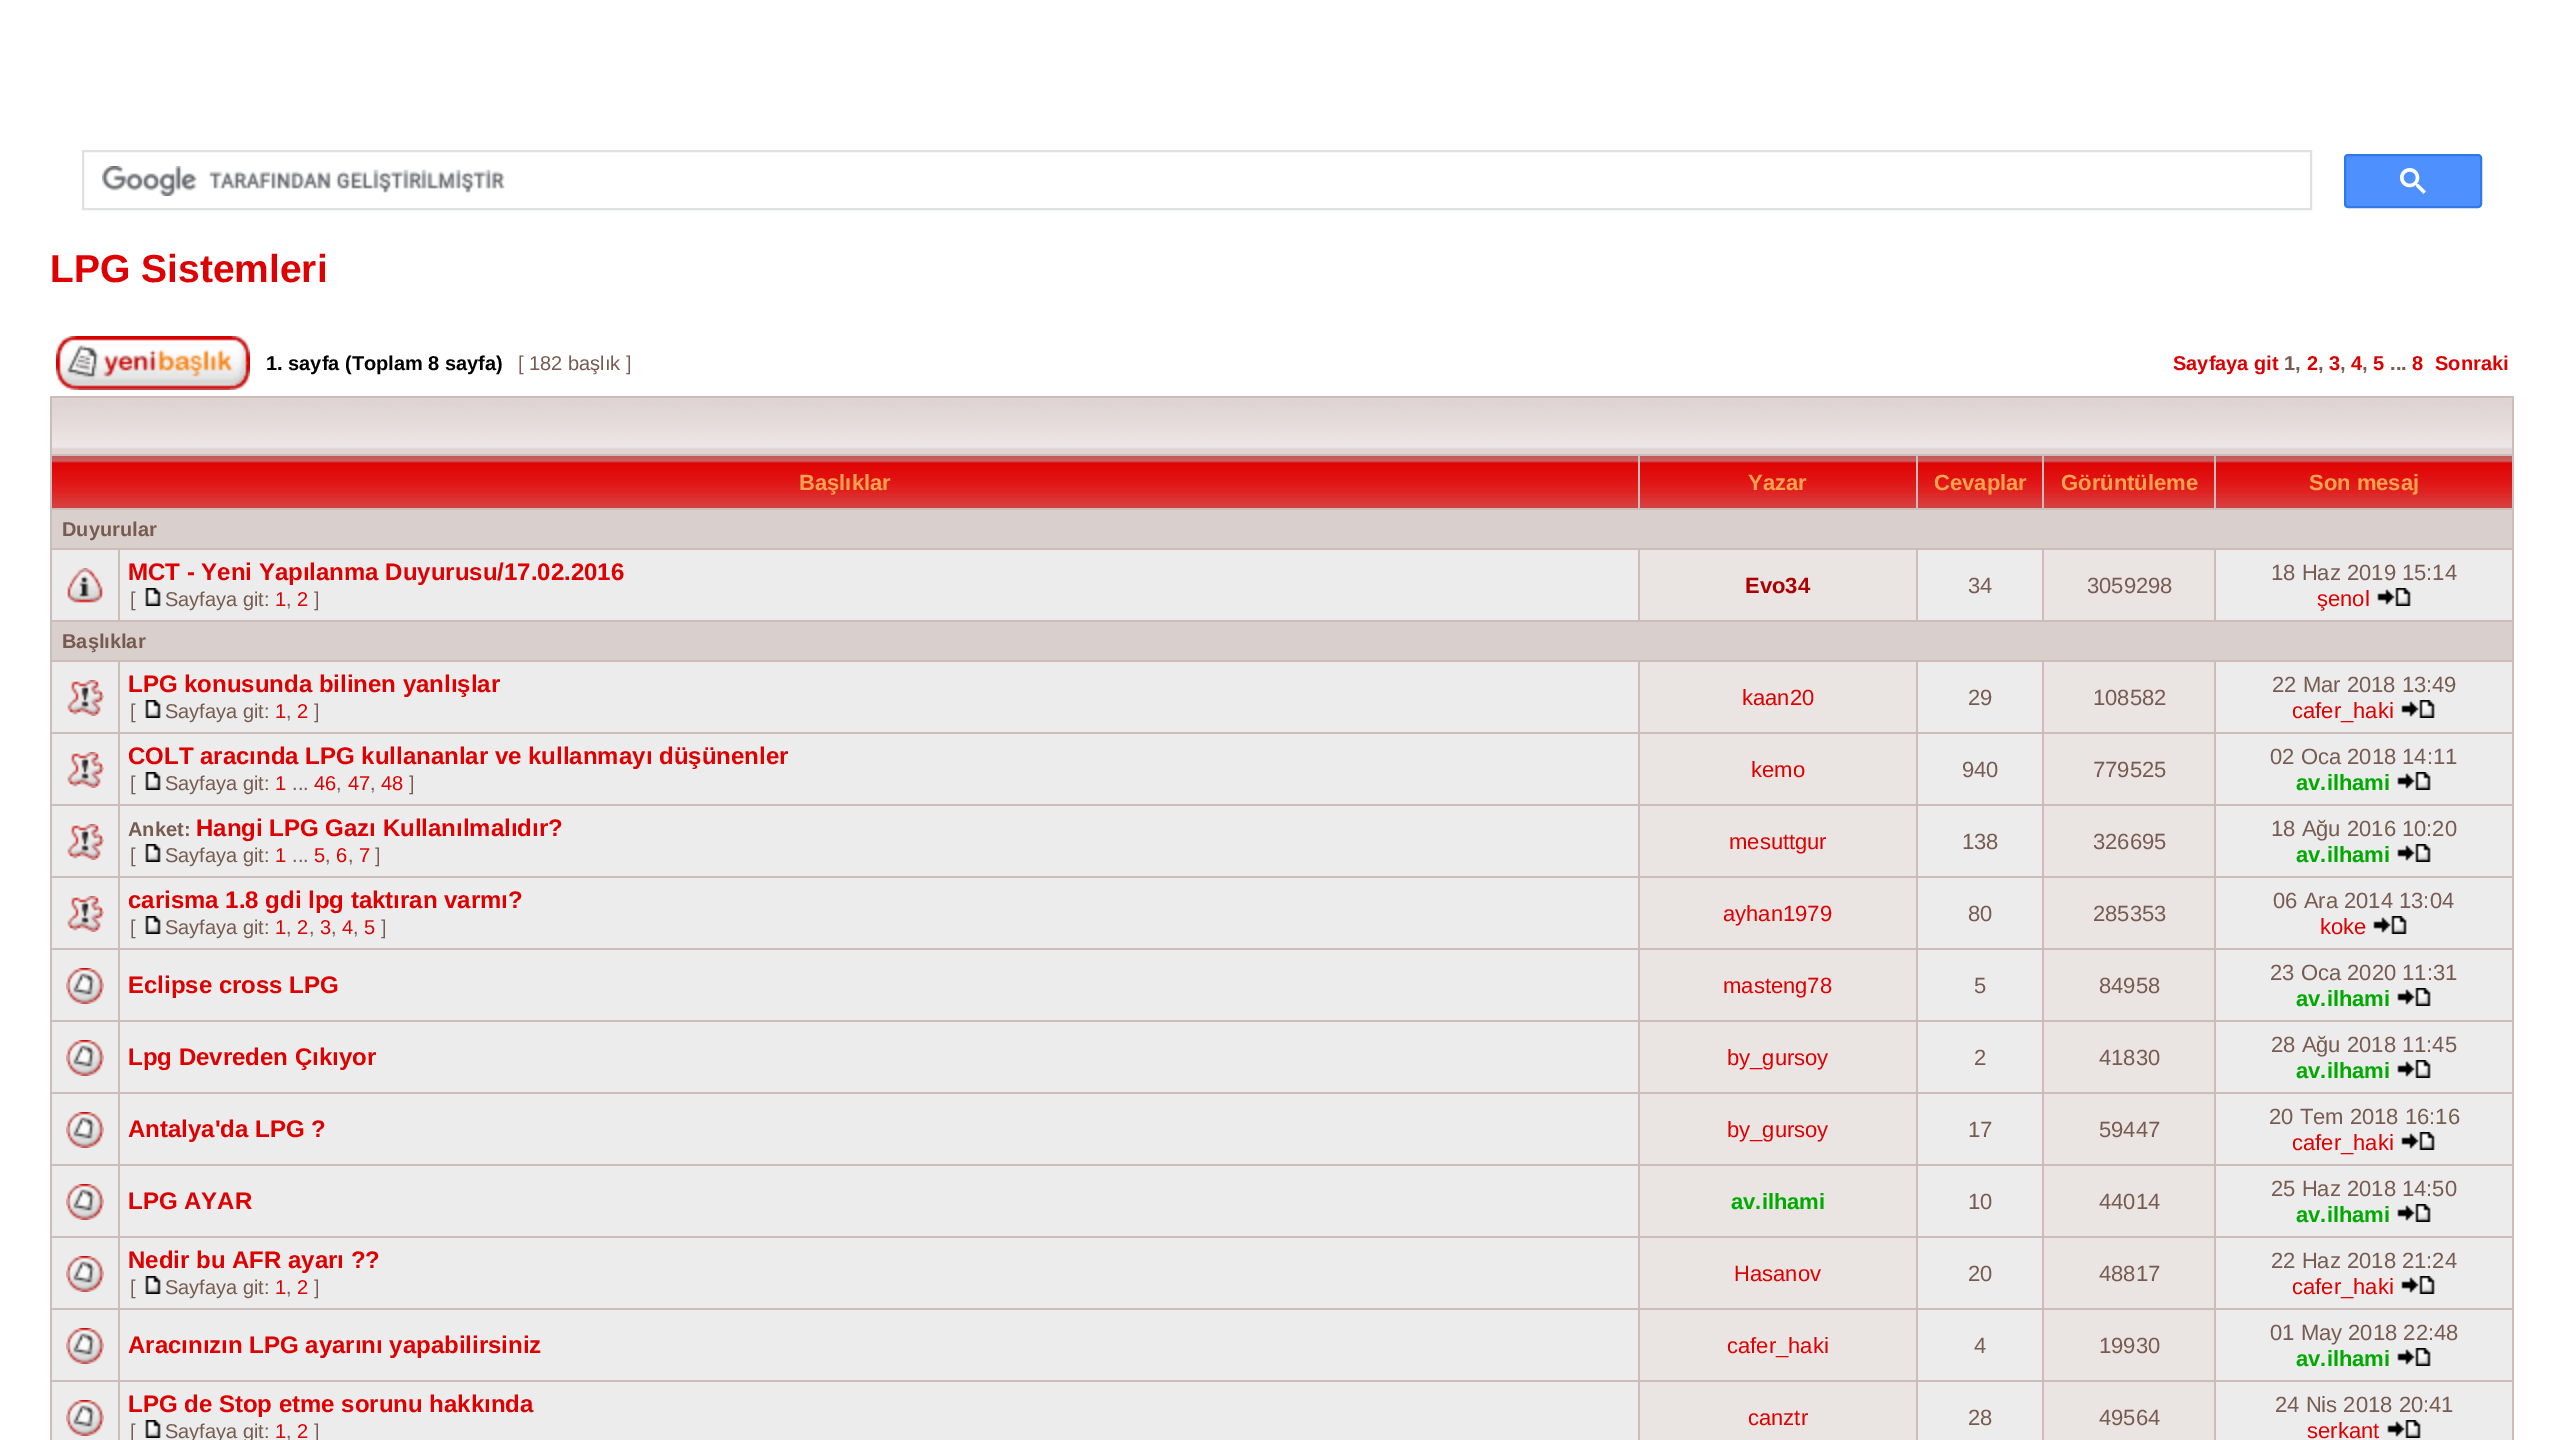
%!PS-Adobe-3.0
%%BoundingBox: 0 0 2563 1440
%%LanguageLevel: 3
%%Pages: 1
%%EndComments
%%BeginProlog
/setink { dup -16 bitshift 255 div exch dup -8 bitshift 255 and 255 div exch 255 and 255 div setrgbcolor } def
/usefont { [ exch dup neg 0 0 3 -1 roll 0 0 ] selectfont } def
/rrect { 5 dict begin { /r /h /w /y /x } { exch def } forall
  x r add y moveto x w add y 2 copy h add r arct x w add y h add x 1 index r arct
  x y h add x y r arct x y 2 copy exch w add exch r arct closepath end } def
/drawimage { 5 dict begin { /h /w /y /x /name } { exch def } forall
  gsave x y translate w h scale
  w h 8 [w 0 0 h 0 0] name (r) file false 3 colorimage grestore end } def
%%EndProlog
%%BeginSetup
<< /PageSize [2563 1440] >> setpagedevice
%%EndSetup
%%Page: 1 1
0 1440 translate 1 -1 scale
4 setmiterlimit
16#FFFFFF setink
0 0 2563 1440 rectfill
16#DFE1E5 setink
2 setlinewidth
83 151 2228 58 rectstroke
(img1.raw) 102 166 403 30 drawimage
16#4D90FE setink
2345 155 136 52 3 rrect gsave fill grestore
16#3079ED setink
stroke
(img2.raw) 2400 168 26 26 drawimage
/LiberationSans-Bold 39 usefont
16#DE0102 setink
50 282 moveto (LPG Sistemleri) show
(img3.raw) 56 336 194 54 drawimage
/LiberationSans-Bold 20 usefont
16#000000 setink
266 370 moveto (1. sayfa \(Toplam 8 sayfa\)) show
/LiberationSans-Regular 20 usefont
16#785B50 setink
518 370 moveto ([ 182 başlık ]) show
/LiberationSans-Bold 20 usefont
16#DE0102 setink
2173 370 moveto (Sayfaya git) show
16#785B50 setink
2284 370 moveto (1,) show
16#DE0102 setink
2307 370 moveto (2) show
16#785B50 setink
2318 370 moveto (,) show
16#DE0102 setink
2329 370 moveto (3) show
16#785B50 setink
2340 370 moveto (,) show
16#DE0102 setink
2351 370 moveto (4) show
16#785B50 setink
2362 370 moveto (,) show
16#DE0102 setink
2373 370 moveto (5) show
16#785B50 setink
2390 370 moveto (...) show
16#DE0102 setink
2412 370 moveto (8) show
2435 370 moveto (Sonraki) show
16#CEBCBA setink
50 396 2464 1044 rectfill
16#DFD4D2 setink
52 449 2460 5 rectfill
(img4.raw) 52 398 2460 51 drawimage
(img5.raw) 52 456 1586 52 drawimage
/LiberationSans-Bold 22 usefont
16#FFA34F setink
799 490 moveto (Başlıklar) show
(img6.raw) 1640 456 276 52 drawimage
1748 490 moveto (Yazar) show
(img7.raw) 1918 456 124 52 drawimage
1934 490 moveto (Cevaplar) show
(img8.raw) 2044 456 170 52 drawimage
2061 490 moveto (Görüntüleme) show
(img9.raw) 2216 456 296 52 drawimage
2309 490 moveto (Son mesaj) show
16#D9CFCD setink
52 510 2460 38 rectfill
/LiberationSans-Bold 20 usefont
16#785B50 setink
62 536 moveto (Duyurular) show
16#ECECEC setink
52 550 66 70 rectfill
(img10.raw) 66 568 38 35 drawimage
120 550 1518 70 rectfill
/LiberationSans-Bold 24 usefont
16#DE0102 setink
128 580 moveto (MCT - Yeni Yapılanma Duyurusu/17.02.2016) show
/LiberationSans-Regular 20 usefont
16#785B50 setink
130 606 moveto ([) show
(img11.raw) 145 588 16 18 drawimage
165 606 moveto (Sayfaya git:) show
16#DE0102 setink
275 606 moveto (1) show
16#785B50 setink
286 606 moveto (,) show
16#DE0102 setink
297 606 moveto (2) show
16#785B50 setink
314 606 moveto (]) show
16#EAE4E3 setink
1640 550 276 70 rectfill
/LiberationSans-Bold 22 usefont
16#AA0000 setink
1745 593 moveto (Evo34) show
16#ECECEC setink
1918 550 124 70 rectfill
/LiberationSans-Regular 22 usefont
16#785B50 setink
1968 593 moveto (34) show
16#EAE4E3 setink
2044 550 170 70 rectfill
16#785B50 setink
2087 593 moveto (3059298) show
16#ECECEC setink
2216 550 296 70 rectfill
16#785B50 setink
2271 580 moveto (18 Haz 2019 15:14) show
16#DE0102 setink
2317 606 moveto (şenol) show
(img12.raw) 2377 588 34 18 drawimage
16#D9CFCD setink
52 622 2460 38 rectfill
/LiberationSans-Bold 20 usefont
16#785B50 setink
62 648 moveto (Başlıklar) show
16#ECECEC setink
52 662 66 70 rectfill
(img13.raw) 67 680 37 36 drawimage
120 662 1518 70 rectfill
/LiberationSans-Bold 24 usefont
16#DE0102 setink
128 692 moveto (LPG konusunda bilinen yanlışlar) show
/LiberationSans-Regular 20 usefont
16#785B50 setink
130 718 moveto ([) show
(img11.raw) 145 700 16 18 drawimage
165 718 moveto (Sayfaya git:) show
16#DE0102 setink
275 718 moveto (1) show
16#785B50 setink
286 718 moveto (,) show
16#DE0102 setink
297 718 moveto (2) show
16#785B50 setink
314 718 moveto (]) show
16#EAE4E3 setink
1640 662 276 70 rectfill
/LiberationSans-Regular 22 usefont
16#DE0102 setink
1742 705 moveto (kaan20) show
16#ECECEC setink
1918 662 124 70 rectfill
16#785B50 setink
1968 705 moveto (29) show
16#EAE4E3 setink
2044 662 170 70 rectfill
16#785B50 setink
2093 705 moveto (108582) show
16#ECECEC setink
2216 662 296 70 rectfill
16#785B50 setink
2272 692 moveto (22 Mar 2018 13:49) show
16#DE0102 setink
2292 718 moveto (cafer_haki) show
(img12.raw) 2401 700 34 18 drawimage
16#ECECEC setink
52 734 66 70 rectfill
(img13.raw) 67 752 37 36 drawimage
120 734 1518 70 rectfill
/LiberationSans-Bold 24 usefont
16#DE0102 setink
128 764 moveto (COLT aracında LPG kullananlar ve kullanmayı düşünenler) show
/LiberationSans-Regular 20 usefont
16#785B50 setink
130 790 moveto ([) show
(img11.raw) 145 772 16 18 drawimage
165 790 moveto (Sayfaya git:) show
16#DE0102 setink
275 790 moveto (1) show
16#785B50 setink
292 790 moveto (...) show
16#DE0102 setink
314 790 moveto (46) show
16#785B50 setink
336 790 moveto (,) show
16#DE0102 setink
348 790 moveto (47) show
16#785B50 setink
370 790 moveto (,) show
16#DE0102 setink
381 790 moveto (48) show
16#785B50 setink
409 790 moveto (]) show
16#EAE4E3 setink
1640 734 276 70 rectfill
/LiberationSans-Regular 22 usefont
16#DE0102 setink
1751 777 moveto (kemo) show
16#ECECEC setink
1918 734 124 70 rectfill
16#785B50 setink
1962 777 moveto (940) show
16#EAE4E3 setink
2044 734 170 70 rectfill
16#785B50 setink
2093 777 moveto (779525) show
16#ECECEC setink
2216 734 296 70 rectfill
16#785B50 setink
2270 764 moveto (02 Oca 2018 14:11) show
/LiberationSans-Bold 22 usefont
16#00AA00 setink
2296 790 moveto (av.ilhami) show
(img12.raw) 2397 772 34 18 drawimage
16#ECECEC setink
52 806 66 70 rectfill
(img13.raw) 67 824 37 36 drawimage
120 806 1518 70 rectfill
/LiberationSans-Bold 20 usefont
16#785B50 setink
128 836 moveto (Anket:) show
/LiberationSans-Bold 24 usefont
16#DE0102 setink
196 836 moveto (Hangi LPG Gazı Kullanılmalıdır?) show
/LiberationSans-Regular 20 usefont
16#785B50 setink
130 862 moveto ([) show
(img11.raw) 145 844 16 18 drawimage
165 862 moveto (Sayfaya git:) show
16#DE0102 setink
275 862 moveto (1) show
16#785B50 setink
292 862 moveto (...) show
16#DE0102 setink
314 862 moveto (5) show
16#785B50 setink
325 862 moveto (,) show
16#DE0102 setink
336 862 moveto (6) show
16#785B50 setink
348 862 moveto (,) show
16#DE0102 setink
359 862 moveto (7) show
16#785B50 setink
375 862 moveto (]) show
16#EAE4E3 setink
1640 806 276 70 rectfill
/LiberationSans-Regular 22 usefont
16#DE0102 setink
1729 849 moveto (mesuttgur) show
16#ECECEC setink
1918 806 124 70 rectfill
16#785B50 setink
1962 849 moveto (138) show
16#EAE4E3 setink
2044 806 170 70 rectfill
16#785B50 setink
2093 849 moveto (326695) show
16#ECECEC setink
2216 806 296 70 rectfill
16#785B50 setink
2271 836 moveto (18 Ağu 2016 10:20) show
/LiberationSans-Bold 22 usefont
16#00AA00 setink
2296 862 moveto (av.ilhami) show
(img12.raw) 2397 844 34 18 drawimage
16#ECECEC setink
52 878 66 70 rectfill
(img13.raw) 67 896 37 36 drawimage
120 878 1518 70 rectfill
/LiberationSans-Bold 24 usefont
16#DE0102 setink
128 908 moveto (carisma 1.8 gdi lpg taktıran varmı?) show
/LiberationSans-Regular 20 usefont
16#785B50 setink
130 934 moveto ([) show
(img11.raw) 145 916 16 18 drawimage
165 934 moveto (Sayfaya git:) show
16#DE0102 setink
275 934 moveto (1) show
16#785B50 setink
286 934 moveto (,) show
16#DE0102 setink
297 934 moveto (2) show
16#785B50 setink
309 934 moveto (,) show
16#DE0102 setink
320 934 moveto (3) show
16#785B50 setink
331 934 moveto (,) show
16#DE0102 setink
342 934 moveto (4) show
16#785B50 setink
353 934 moveto (,) show
16#DE0102 setink
364 934 moveto (5) show
16#785B50 setink
381 934 moveto (]) show
16#EAE4E3 setink
1640 878 276 70 rectfill
/LiberationSans-Regular 22 usefont
16#DE0102 setink
1723 921 moveto (ayhan1979) show
16#ECECEC setink
1918 878 124 70 rectfill
16#785B50 setink
1968 921 moveto (80) show
16#EAE4E3 setink
2044 878 170 70 rectfill
16#785B50 setink
2093 921 moveto (285353) show
16#ECECEC setink
2216 878 296 70 rectfill
16#785B50 setink
2273 908 moveto (06 Ara 2014 13:04) show
16#DE0102 setink
2320 934 moveto (koke) show
(img12.raw) 2373 916 34 18 drawimage
16#ECECEC setink
52 950 66 70 rectfill
(img14.raw) 66 968 38 36 drawimage
120 950 1518 70 rectfill
/LiberationSans-Bold 24 usefont
16#DE0102 setink
128 993 moveto (Eclipse cross LPG) show
16#EAE4E3 setink
1640 950 276 70 rectfill
/LiberationSans-Regular 22 usefont
16#DE0102 setink
1723 993 moveto (masteng78) show
16#ECECEC setink
1918 950 124 70 rectfill
16#785B50 setink
1974 993 moveto (5) show
16#EAE4E3 setink
2044 950 170 70 rectfill
16#785B50 setink
2099 993 moveto (84958) show
16#ECECEC setink
2216 950 296 70 rectfill
16#785B50 setink
2270 980 moveto (23 Oca 2020 11:31) show
/LiberationSans-Bold 22 usefont
16#00AA00 setink
2296 1006 moveto (av.ilhami) show
(img12.raw) 2397 988 34 18 drawimage
16#ECECEC setink
52 1022 66 70 rectfill
(img14.raw) 66 1040 38 36 drawimage
120 1022 1518 70 rectfill
/LiberationSans-Bold 24 usefont
16#DE0102 setink
128 1065 moveto (Lpg Devreden Çıkıyor) show
16#EAE4E3 setink
1640 1022 276 70 rectfill
/LiberationSans-Regular 22 usefont
16#DE0102 setink
1727 1065 moveto (by_gursoy) show
16#ECECEC setink
1918 1022 124 70 rectfill
16#785B50 setink
1974 1065 moveto (2) show
16#EAE4E3 setink
2044 1022 170 70 rectfill
16#785B50 setink
2099 1065 moveto (41830) show
16#ECECEC setink
2216 1022 296 70 rectfill
16#785B50 setink
2271 1052 moveto (28 Ağu 2018 11:45) show
/LiberationSans-Bold 22 usefont
16#00AA00 setink
2296 1078 moveto (av.ilhami) show
(img12.raw) 2397 1060 34 18 drawimage
16#ECECEC setink
52 1094 66 70 rectfill
(img14.raw) 66 1112 38 36 drawimage
120 1094 1518 70 rectfill
/LiberationSans-Bold 24 usefont
16#DE0102 setink
128 1137 moveto (Antalya'da LPG ?) show
16#EAE4E3 setink
1640 1094 276 70 rectfill
/LiberationSans-Regular 22 usefont
16#DE0102 setink
1727 1137 moveto (by_gursoy) show
16#ECECEC setink
1918 1094 124 70 rectfill
16#785B50 setink
1968 1137 moveto (17) show
16#EAE4E3 setink
2044 1094 170 70 rectfill
16#785B50 setink
2099 1137 moveto (59447) show
16#ECECEC setink
2216 1094 296 70 rectfill
16#785B50 setink
2269 1124 moveto (20 Tem 2018 16:16) show
16#DE0102 setink
2292 1150 moveto (cafer_haki) show
(img12.raw) 2401 1132 34 18 drawimage
16#ECECEC setink
52 1166 66 70 rectfill
(img14.raw) 66 1184 38 36 drawimage
120 1166 1518 70 rectfill
/LiberationSans-Bold 24 usefont
16#DE0102 setink
128 1209 moveto (LPG AYAR) show
16#EAE4E3 setink
1640 1166 276 70 rectfill
/LiberationSans-Bold 22 usefont
16#00AA00 setink
1731 1209 moveto (av.ilhami) show
16#ECECEC setink
1918 1166 124 70 rectfill
/LiberationSans-Regular 22 usefont
16#785B50 setink
1968 1209 moveto (10) show
16#EAE4E3 setink
2044 1166 170 70 rectfill
16#785B50 setink
2099 1209 moveto (44014) show
16#ECECEC setink
2216 1166 296 70 rectfill
16#785B50 setink
2271 1196 moveto (25 Haz 2018 14:50) show
/LiberationSans-Bold 22 usefont
16#00AA00 setink
2296 1222 moveto (av.ilhami) show
(img12.raw) 2397 1204 34 18 drawimage
16#ECECEC setink
52 1238 66 70 rectfill
(img14.raw) 66 1256 38 36 drawimage
120 1238 1518 70 rectfill
/LiberationSans-Bold 24 usefont
16#DE0102 setink
128 1268 moveto (Nedir bu AFR ayarı ??) show
/LiberationSans-Regular 20 usefont
16#785B50 setink
130 1294 moveto ([) show
(img11.raw) 145 1276 16 18 drawimage
165 1294 moveto (Sayfaya git:) show
16#DE0102 setink
275 1294 moveto (1) show
16#785B50 setink
286 1294 moveto (,) show
16#DE0102 setink
297 1294 moveto (2) show
16#785B50 setink
314 1294 moveto (]) show
16#EAE4E3 setink
1640 1238 276 70 rectfill
/LiberationSans-Regular 22 usefont
16#DE0102 setink
1734 1281 moveto (Hasanov) show
16#ECECEC setink
1918 1238 124 70 rectfill
16#785B50 setink
1968 1281 moveto (20) show
16#EAE4E3 setink
2044 1238 170 70 rectfill
16#785B50 setink
2099 1281 moveto (48817) show
16#ECECEC setink
2216 1238 296 70 rectfill
16#785B50 setink
2271 1268 moveto (22 Haz 2018 21:24) show
16#DE0102 setink
2292 1294 moveto (cafer_haki) show
(img12.raw) 2401 1276 34 18 drawimage
16#ECECEC setink
52 1310 66 70 rectfill
(img14.raw) 66 1328 38 36 drawimage
120 1310 1518 70 rectfill
/LiberationSans-Bold 24 usefont
16#DE0102 setink
128 1353 moveto (Aracınızın LPG ayarını yapabilirsiniz) show
16#EAE4E3 setink
1640 1310 276 70 rectfill
/LiberationSans-Regular 22 usefont
16#DE0102 setink
1727 1353 moveto (cafer_haki) show
16#ECECEC setink
1918 1310 124 70 rectfill
16#785B50 setink
1974 1353 moveto (4) show
16#EAE4E3 setink
2044 1310 170 70 rectfill
16#785B50 setink
2099 1353 moveto (19930) show
16#ECECEC setink
2216 1310 296 70 rectfill
16#785B50 setink
2270 1340 moveto (01 May 2018 22:48) show
/LiberationSans-Bold 22 usefont
16#00AA00 setink
2296 1366 moveto (av.ilhami) show
(img12.raw) 2397 1348 34 18 drawimage
16#ECECEC setink
52 1382 66 58 rectfill
(img14.raw) 66 1400 38 36 drawimage
120 1382 1518 58 rectfill
/LiberationSans-Bold 24 usefont
16#DE0102 setink
128 1412 moveto (LPG de Stop etme sorunu hakkında) show
/LiberationSans-Regular 20 usefont
16#785B50 setink
130 1438 moveto ([) show
(img11.raw) 145 1420 16 18 drawimage
165 1438 moveto (Sayfaya git:) show
16#DE0102 setink
275 1438 moveto (1) show
16#785B50 setink
286 1438 moveto (,) show
16#DE0102 setink
297 1438 moveto (2) show
16#785B50 setink
314 1438 moveto (]) show
16#EAE4E3 setink
1640 1382 276 58 rectfill
/LiberationSans-Regular 22 usefont
16#DE0102 setink
1748 1425 moveto (canztr) show
16#ECECEC setink
1918 1382 124 58 rectfill
16#785B50 setink
1968 1425 moveto (28) show
16#EAE4E3 setink
2044 1382 170 58 rectfill
16#785B50 setink
2099 1425 moveto (49564) show
16#ECECEC setink
2216 1382 296 58 rectfill
16#785B50 setink
2275 1412 moveto (24 Nis 2018 20:41) show
16#DE0102 setink
2307 1438 moveto (serkant) show
(img12.raw) 2387 1420 34 18 drawimage
showpage
%%EOF
